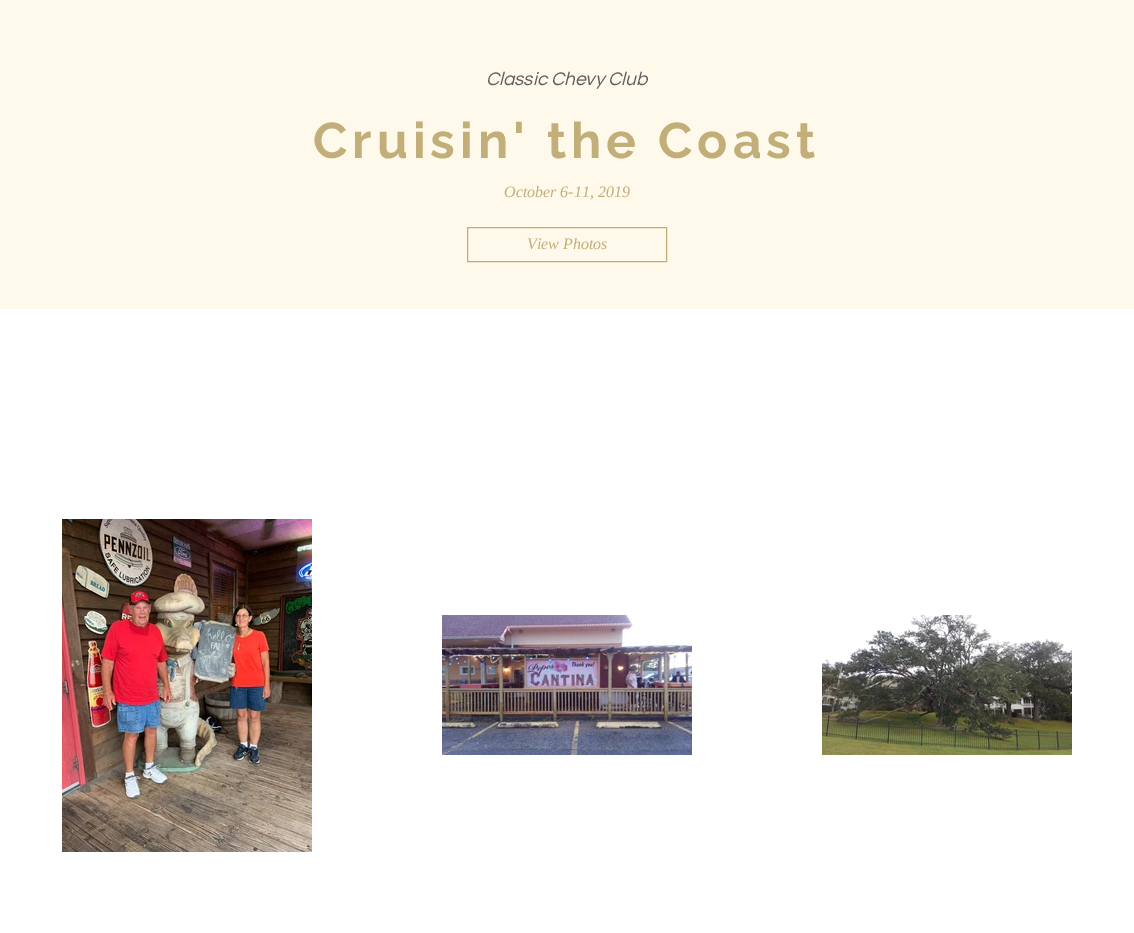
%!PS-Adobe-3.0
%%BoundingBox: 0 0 1134 933
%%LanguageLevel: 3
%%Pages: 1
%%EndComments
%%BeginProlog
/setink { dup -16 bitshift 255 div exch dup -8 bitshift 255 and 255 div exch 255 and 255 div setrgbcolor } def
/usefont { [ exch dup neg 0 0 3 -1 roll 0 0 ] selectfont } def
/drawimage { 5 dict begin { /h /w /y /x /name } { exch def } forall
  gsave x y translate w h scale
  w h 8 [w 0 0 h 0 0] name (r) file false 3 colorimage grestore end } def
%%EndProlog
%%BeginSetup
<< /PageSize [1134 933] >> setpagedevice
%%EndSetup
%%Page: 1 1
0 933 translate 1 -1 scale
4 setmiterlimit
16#FFFFFF setink
0 0 1134 933 rectfill
16#FFF9EB setink
0 0 1134 309 rectfill
/Questrial-Italic 19 usefont
16#605E5E setink
486 85 moveto (Classic Chevy Club) show
/Raleway-Bold 50 usefont
16#C2AE79 setink
313 158 moveto 5 0 (Cruisin' the Coast) ashow
/LiberationSerif-Italic 16 usefont
504 197 moveto (October 6-11, 2019) show
467.5 227.5 199 34 rectstroke
527 249 moveto (View Photos) show
(img1.raw) 62 519 250 333 drawimage
(img2.raw) 442 615 250 140 drawimage
(img3.raw) 822 615 250 140 drawimage
showpage
%%EOF
